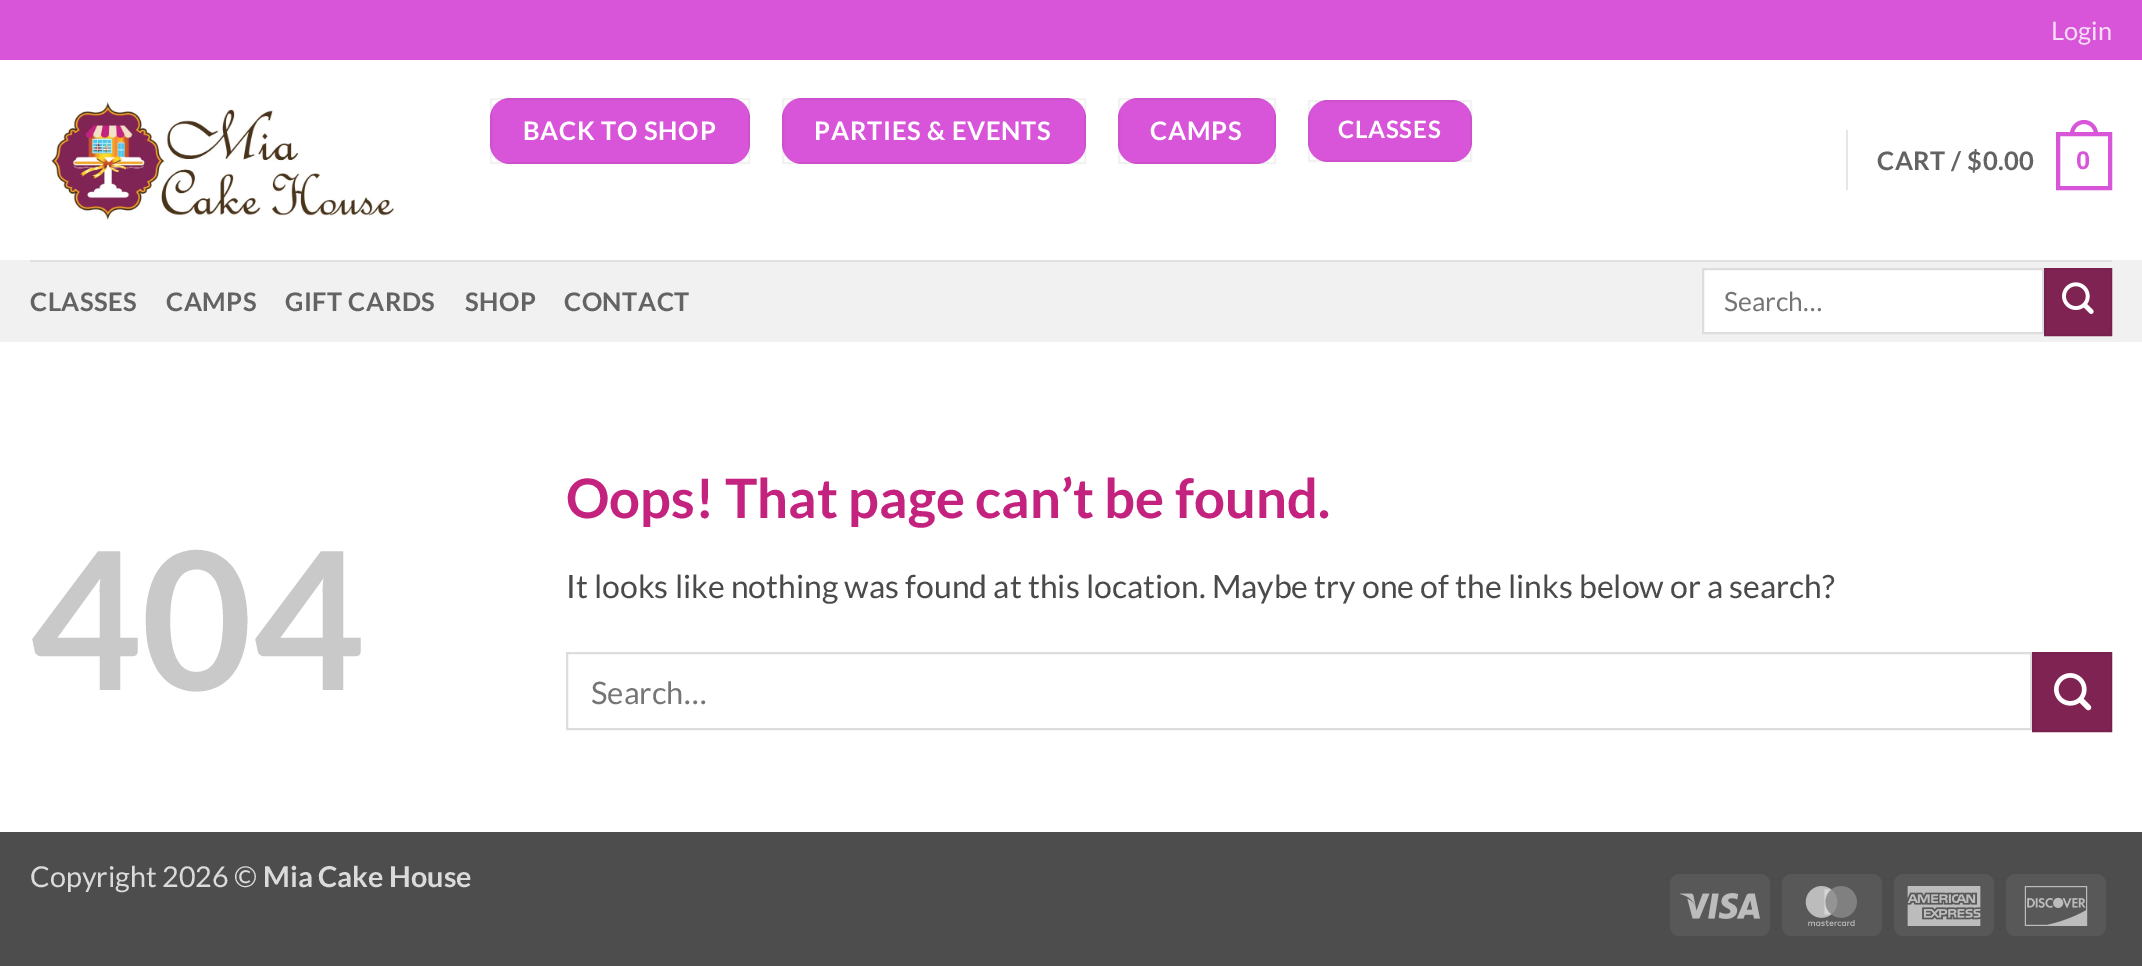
%!PS-Adobe-3.0
%%BoundingBox: 0 0 2142 966
%%LanguageLevel: 3
%%Pages: 1
%%EndComments
%%BeginProlog
/setink { dup -16 bitshift 255 div exch dup -8 bitshift 255 and 255 div exch 255 and 255 div setrgbcolor } def
/usefont { [ exch dup neg 0 0 3 -1 roll 0 0 ] selectfont } def
/setalpha { dup .setfillconstantalpha .setstrokeconstantalpha } def
/rrect { 5 dict begin { /r /h /w /y /x } { exch def } forall
  x r add y moveto x w add y 2 copy h add r arct x w add y h add x 1 index r arct
  x y h add x y r arct x y 2 copy exch w add exch r arct closepath end } def
/drawimage { 5 dict begin { /h /w /y /x /name } { exch def } forall
  gsave x y translate w h scale
  w h 8 [w 0 0 h 0 0] name (r) file false 3 colorimage grestore end } def
%%EndProlog
%%BeginSetup
<< /PageSize [2142 966] /PageUsesTransparency true >> setpagedevice
%%EndSetup
%%Page: 1 1
0 .pushpdf14devicefilter
0 966 translate 1 -1 scale
4 setmiterlimit
16#FFFFFF setink
0 0 2142 966 rectfill
16#D854D8 setink
0 0 2142 60 rectfill
/Lato-Regular 25.5 usefont
16#F7DDF7 setink
2051 40 moveto (Login) show
(img1.raw) 51 101 345 119 drawimage
16#D854D8 setink
490 98 260 66 20 rrect fill
0.05 setalpha
16#000000 setink
2 setlinewidth
491 99 258 64 rectstroke
/Lato-Bold 25.5 usefont
1 setalpha
16#FFFFFF setink
523 140 moveto 0.75 0 (BACK TO SHOP) ashow
16#D854D8 setink
782 98 304 66 20 rrect fill
0.05 setalpha
16#000000 setink
783 99 302 64 rectstroke
1 setalpha
16#FFFFFF setink
814 140 moveto 0.75 0 (PARTIES & EVENTS) ashow
16#D854D8 setink
1118 98 158 66 20 rrect fill
0.05 setalpha
16#000000 setink
1119 99 156 64 rectstroke
1 setalpha
16#FFFFFF setink
1150 140 moveto 0.75 0 (CAMPS) ashow
16#D854D8 setink
1308 100 164 62 20 rrect fill
0.05 setalpha
16#000000 setink
1309 101 162 60 rectstroke
/Lato-Bold 24 usefont
1 setalpha
16#FFFFFF setink
1338 138 moveto 0.75 0 (CLASSES) ashow
16#E6E6E6 setink
1846 130 2 60 rectfill
/Lato-Bold 25.5 usefont
16#636363 setink
1877 170 moveto 0.5 0 (CART / $0.00) ashow
16#D854D8 setink
4 setlinewidth
2058 134 52 54 rectstroke
2084 120 moveto 2091.5 120 2098 126.5 2098 134 curveto 2098 136 lineto 2070 136 lineto 2070 134 lineto 2070 126.5 2076.5 120 2084 120 curveto closepath 2084 124 moveto 2089.5 124 2094 128.5 2094 134 curveto 2094 136 lineto 2074 136 lineto 2074 134 lineto 2074 128.5 2078.5 124 2084 124 curveto closepath eofill
/LiberationSans-Bold 25.5 usefont
2076 169 moveto 0.5 0 (0) ashow
16#F1F1F1 setink
0 260 2142 82 rectfill
16#E0E0E0 setink
30 260 2082 2 rectfill
/Lato-Bold 25.5 usefont
16#636363 setink
30 311 moveto 0.5 0 (CLASSES) ashow
166 311 moveto 0.5 0 (CAMPS) ashow
285 311 moveto 0.5 0 (GIFT CARDS) ashow
465 311 moveto 0.5 0 (SHOP) ashow
564 311 moveto 0.5 0 (CONTACT) ashow
16#FFFFFF setink
1703 269 moveto 2043 269 lineto 2043 333 lineto 1703 333 lineto closepath gsave fill grestore
16#DDDDDD setink
2 setlinewidth
stroke
/Lato-Regular 26.5 usefont
16#757575 setink
1724 311 moveto (Search…) show
16#7F2352 setink
2045 269 moveto 2111 269 lineto 2111 335 lineto 2045 335 lineto closepath gsave fill grestore
16#79214E setink
stroke
(img2.raw) 2062 282 32 32 drawimage
/Lato-Bold 192 usefont
16#C9C9C9 setink
30 690 moveto (404) show
/Lato-Bold 54.4 usefont
16#C3227F setink
566 518 moveto (Oops! That page can’t be found.) show
/Lato-Regular 32 usefont
16#4A4A4A setink
566 598 moveto (It looks like nothing was found at this location. Maybe try one of the links below or a search?) show
16#DDDDDD setink
567 653 1464 76 rectstroke
/Lato-Regular 31 usefont
16#757575 setink
591 704 moveto (Search…) show
16#7F2352 setink
2033 653 moveto 2111 653 lineto 2111 731 lineto 2033 731 lineto closepath gsave fill grestore
16#79214E setink
stroke
(img3.raw) 2054 673 38 38 drawimage
16#4D4D4D setink
0 832 2142 134 rectfill
/Lato-Regular 28.75 usefont
16#DBDBDB setink
30 887 moveto (Copyright 2026 ©) show
/Lato-Bold 28.75 usefont
263 887 moveto (Mia Cake House) show
16#585858 setink
1670 874 100 62 10 rrect fill
(img4.raw) 1680 893 80 26 drawimage
1782 874 100 62 10 rrect fill
(img5.raw) 1805 886 52 40 drawimage
1894 874 100 62 10 rrect fill
(img6.raw) 1907 886 74 40 drawimage
2006 874 100 62 10 rrect fill
(img7.raw) 2024 886 64 40 drawimage
.poppdf14devicefilter showpage
%%EOF
